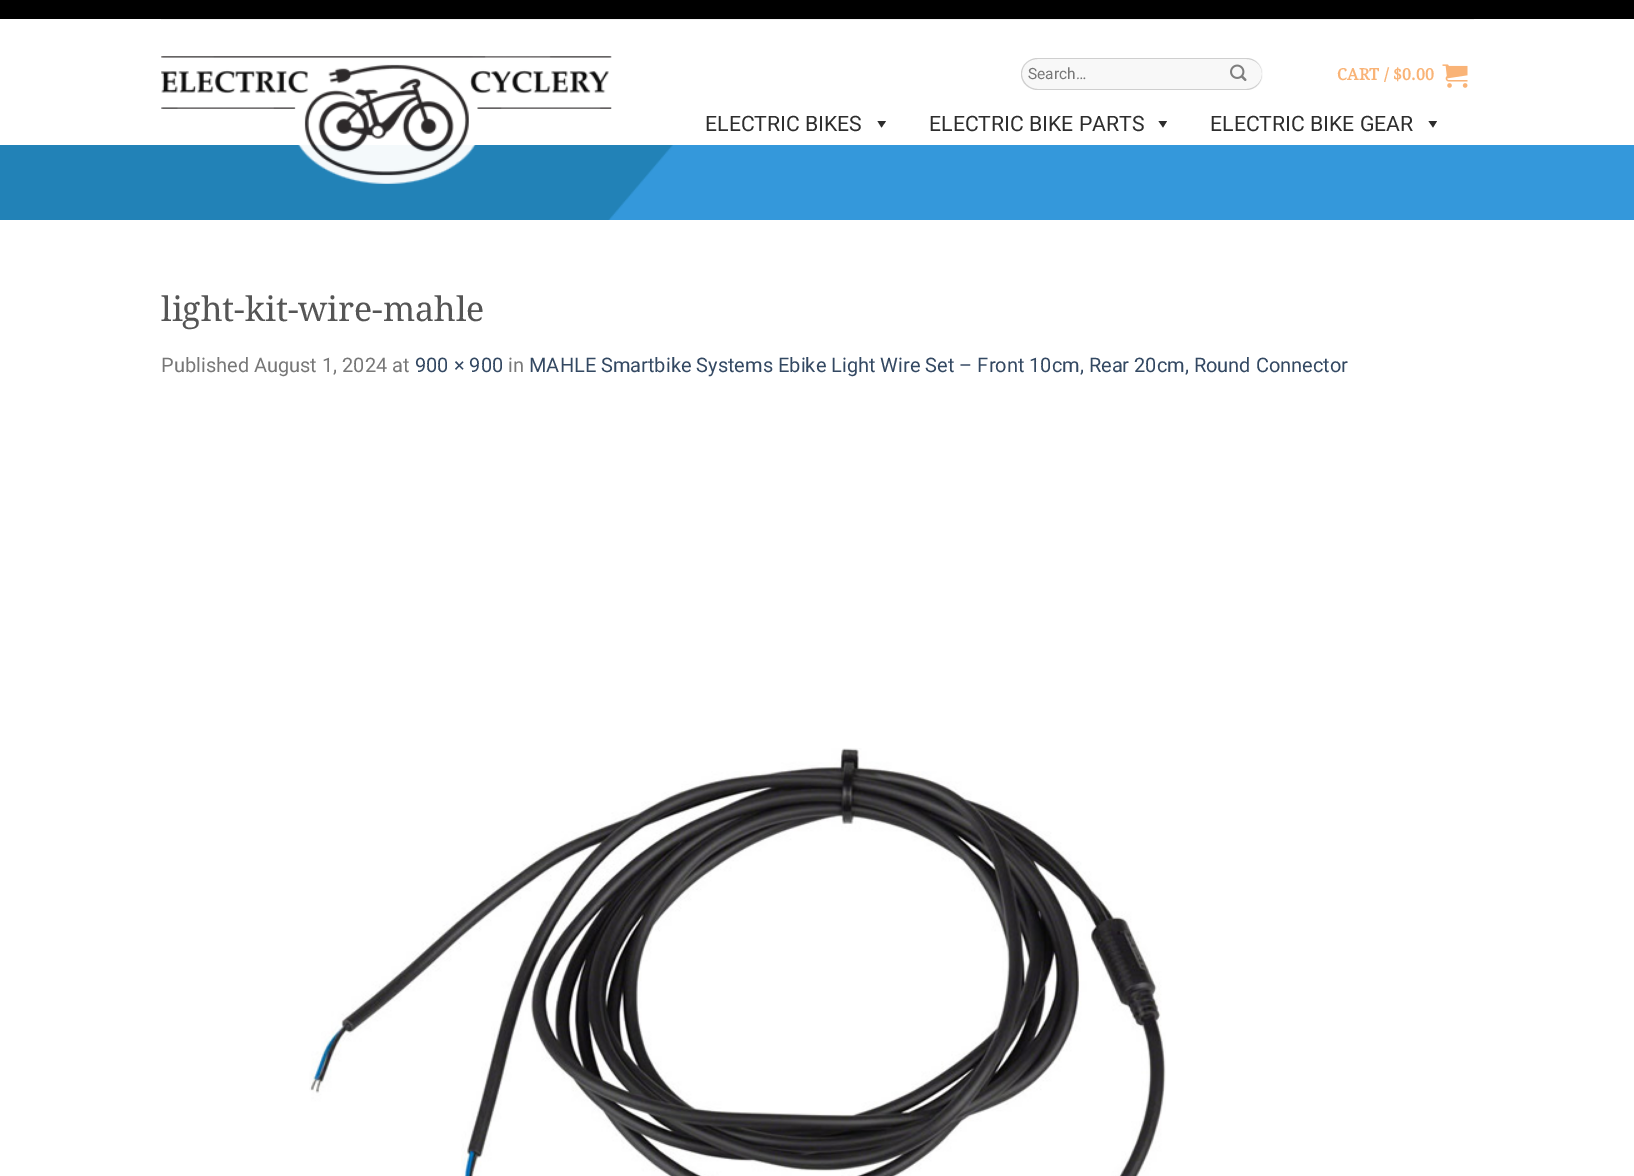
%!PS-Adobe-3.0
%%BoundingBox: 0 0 1634 1176
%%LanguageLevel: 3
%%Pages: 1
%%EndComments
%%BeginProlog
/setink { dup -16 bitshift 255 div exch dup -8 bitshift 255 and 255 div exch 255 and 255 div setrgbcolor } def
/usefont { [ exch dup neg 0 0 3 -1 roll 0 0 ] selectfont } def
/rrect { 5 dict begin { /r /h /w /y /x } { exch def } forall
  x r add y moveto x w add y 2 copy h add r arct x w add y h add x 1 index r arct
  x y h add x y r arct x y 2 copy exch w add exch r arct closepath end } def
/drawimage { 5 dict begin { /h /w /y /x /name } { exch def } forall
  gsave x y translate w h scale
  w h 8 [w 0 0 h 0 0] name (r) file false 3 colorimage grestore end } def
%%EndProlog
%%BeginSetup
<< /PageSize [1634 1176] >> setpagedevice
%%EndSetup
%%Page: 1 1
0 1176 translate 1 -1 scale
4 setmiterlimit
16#FFFFFF setink
0 0 1634 1176 rectfill
16#000000 setink
0 0 1634 19 rectfill
16#F2F2F2 setink
161 19 1313 1 rectfill
(img4.raw) 0 145 1634 75 drawimage
(img1.raw) 161 56 451 128 drawimage
16#F8F8F8 setink
1021 58 242 32 16 rrect fill
16#CFCFCF setink
1038 58 moveto 1246 58 lineto 1255 58 1262 65 1262 74 curveto 1262 83 1255 90 1246 90 curveto 1038 90 lineto 1029 90 1021 83 1021 74 curveto 1021 65 1029 58 1038 58 curveto closepath 1038 59 moveto 1246 59 lineto 1255 59 1262 65 1262 74 curveto 1262 82 1255 89 1246 89 curveto 1038 89 lineto 1029 89 1022 82 1022 74 curveto 1022 65 1029 59 1038 59 curveto closepath eofill
/Roboto-Regular 15.5 usefont
16#777777 setink
1028 79 moveto (Search…) show
(img2.raw) 1230 64 17 17 drawimage
/DroidSerif-Bold 16 usefont
16#F9B376 setink
1337 80 moveto 0.25 0 (CART / $0.00) ashow
(img3.raw) 1442 64 26 24 drawimage
/Roboto-Regular 21.25 usefont
16#2D2D2D setink
705 131 moveto (ELECTRIC BIKES) show
886 121 moveto 881.5 127.5 lineto 877.5 121 lineto closepath fill
929 131 moveto (ELECTRIC BIKE PARTS) show
1167 121 moveto 1163 127.5 lineto 1158.5 121 lineto closepath fill
1210 131 moveto (ELECTRIC BIKE GEAR) show
1437 121 moveto 1433 127.5 lineto 1428.5 121 lineto closepath fill
/DroidSerif-Regular 34 usefont
16#555555 setink
161 321 moveto (light-kit-wire-mahle) show
/Roboto-Regular 20 usefont
16#777777 setink
161 372 moveto (Published August 1, 2024 at) show
16#334862 setink
415 372 moveto (900 × 900) show
16#777777 setink
508 372 moveto (in) show
16#334862 setink
529 372 moveto (MAHLE Smartbike Systems Ebike Light Wire Set – Front 10cm, Rear 20cm, Round Connector) show
(img5.raw) 309 748 857 428 drawimage
showpage
%%EOF
